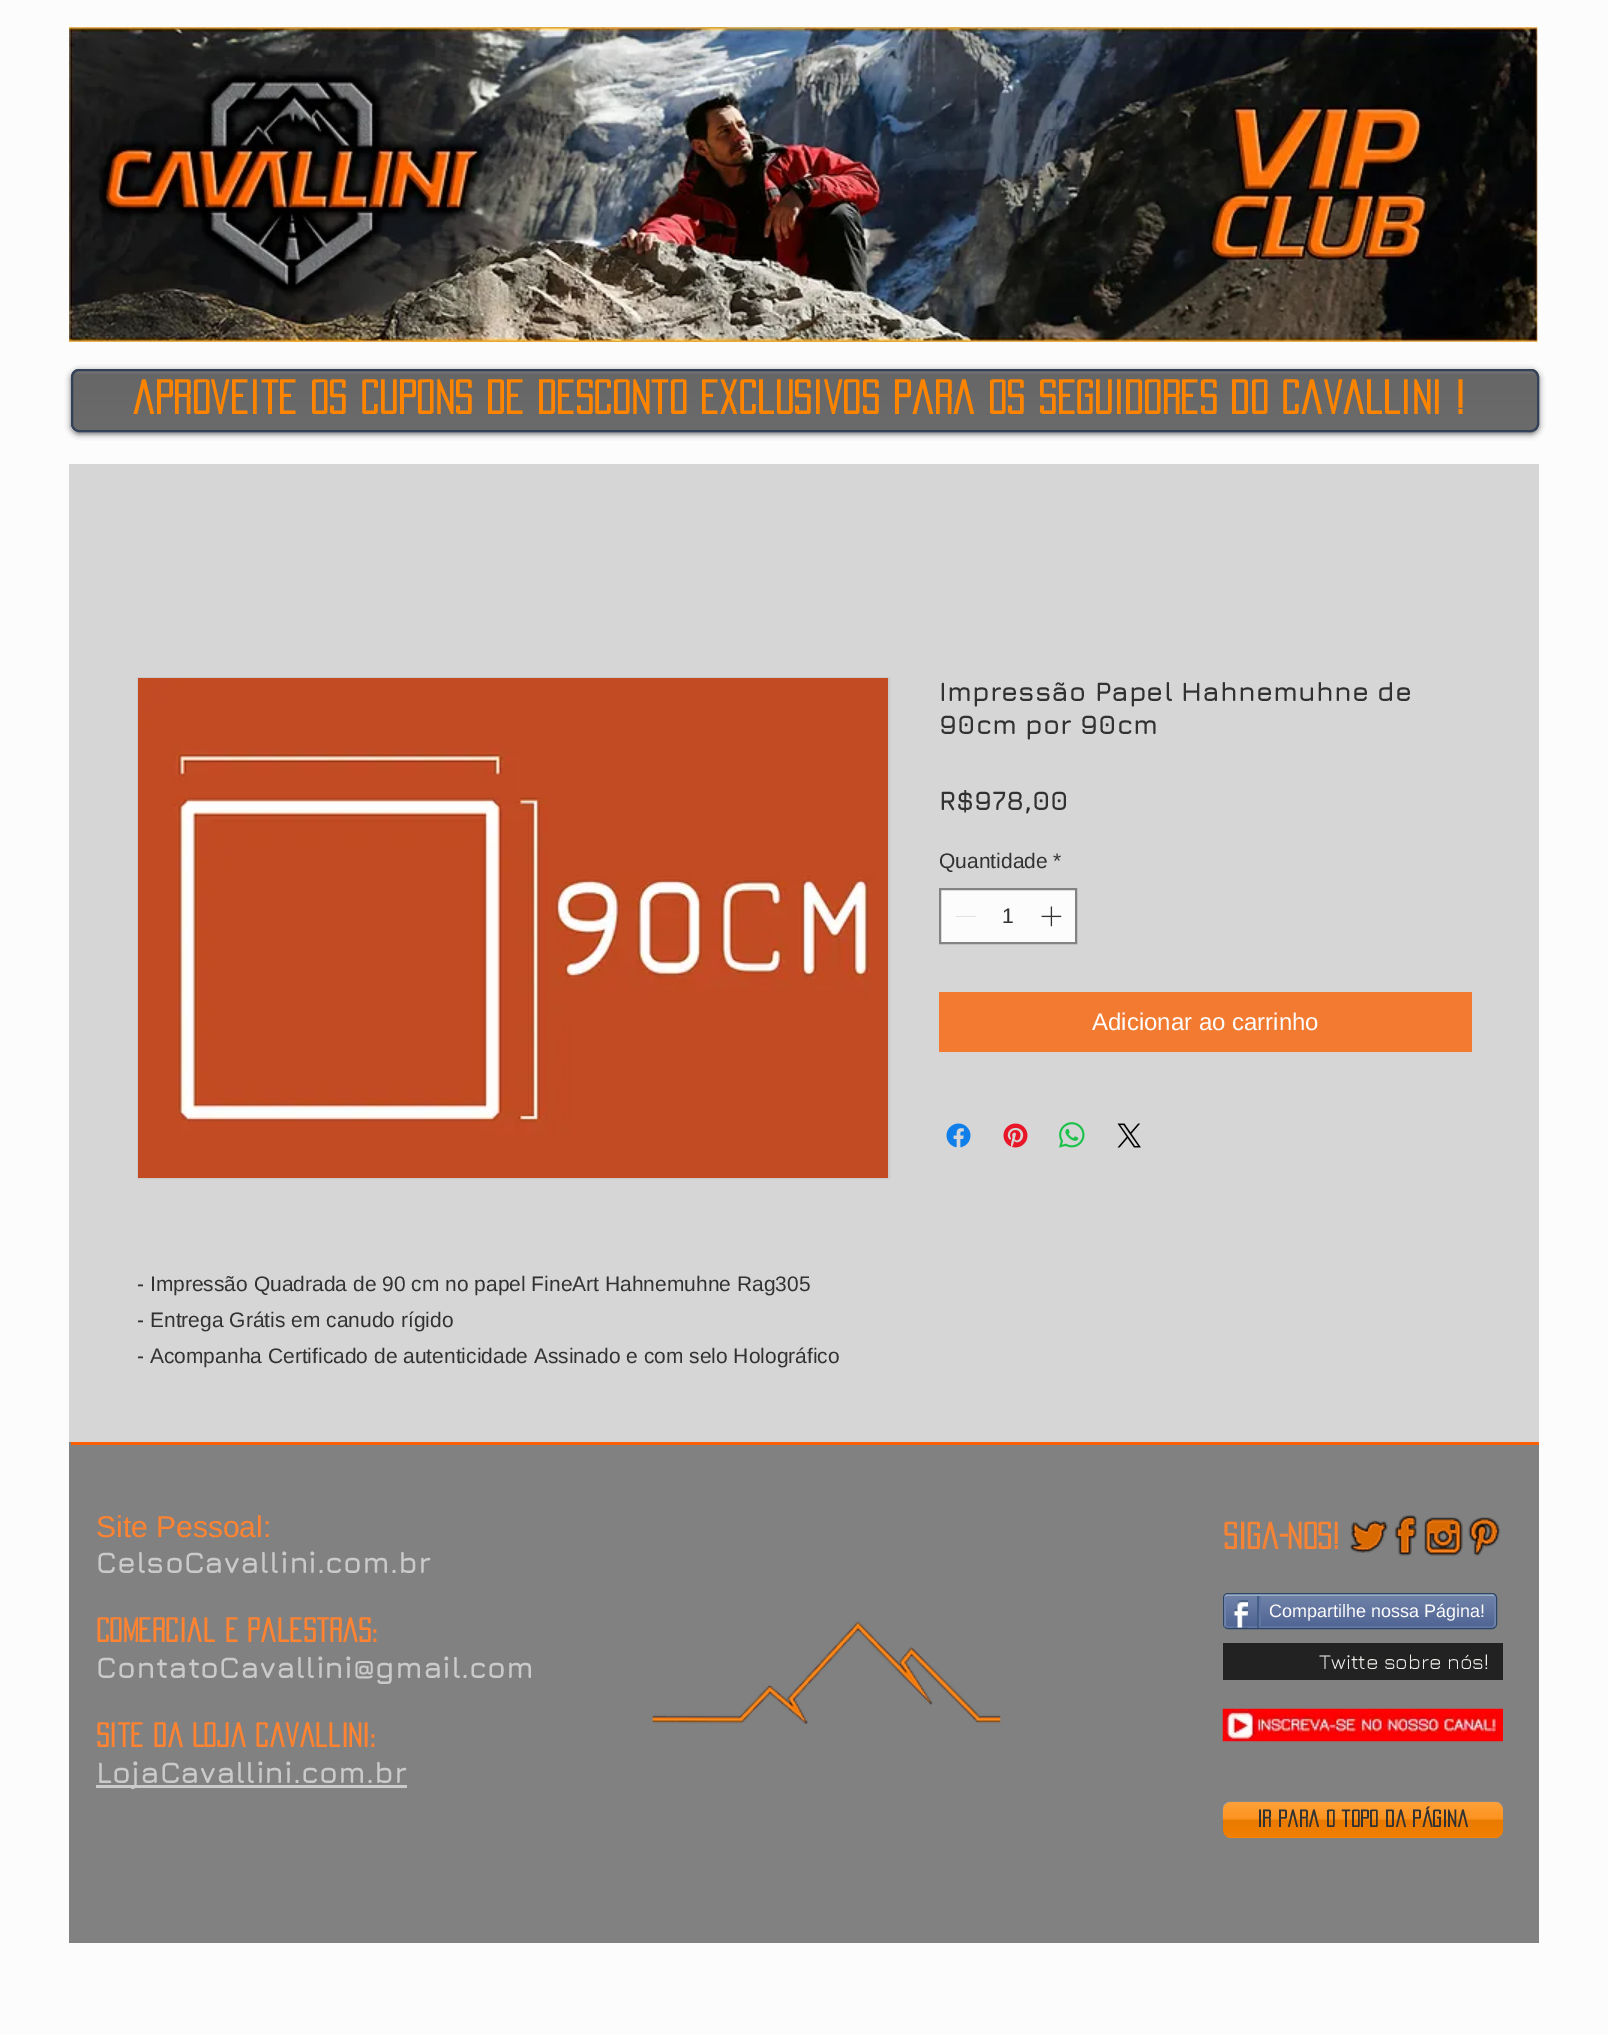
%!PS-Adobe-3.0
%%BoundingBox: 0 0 1608 2034
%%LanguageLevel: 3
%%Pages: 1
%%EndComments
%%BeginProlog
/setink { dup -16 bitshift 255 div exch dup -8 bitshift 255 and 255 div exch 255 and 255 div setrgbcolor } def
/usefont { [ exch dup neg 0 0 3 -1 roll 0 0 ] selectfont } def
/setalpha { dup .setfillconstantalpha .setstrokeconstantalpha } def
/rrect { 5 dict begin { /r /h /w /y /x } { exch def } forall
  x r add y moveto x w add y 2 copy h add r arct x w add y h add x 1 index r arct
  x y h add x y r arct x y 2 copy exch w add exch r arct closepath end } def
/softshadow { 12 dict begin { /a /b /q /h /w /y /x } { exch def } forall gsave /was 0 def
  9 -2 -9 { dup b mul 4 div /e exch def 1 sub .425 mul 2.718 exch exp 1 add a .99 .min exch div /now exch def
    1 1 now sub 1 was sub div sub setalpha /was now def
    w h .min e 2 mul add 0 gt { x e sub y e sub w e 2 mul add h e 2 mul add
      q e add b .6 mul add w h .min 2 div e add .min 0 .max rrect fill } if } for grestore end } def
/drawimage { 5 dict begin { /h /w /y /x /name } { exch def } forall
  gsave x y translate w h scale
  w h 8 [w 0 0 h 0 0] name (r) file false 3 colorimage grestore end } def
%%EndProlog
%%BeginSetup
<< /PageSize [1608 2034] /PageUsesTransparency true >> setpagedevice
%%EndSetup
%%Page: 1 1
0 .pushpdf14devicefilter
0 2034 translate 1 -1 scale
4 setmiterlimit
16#FCFCFC setink
0 0 1608 2034 rectfill
(img1.raw) 69 27 1469 315 drawimage
gsave
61 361 moveto 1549 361 lineto 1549 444 lineto 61 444 lineto closepath 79 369 moveto 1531 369 lineto 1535.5 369 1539 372.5 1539 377 curveto 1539 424 lineto 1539 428.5 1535.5 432 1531 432 curveto 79 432 lineto 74.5 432 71 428.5 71 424 curveto 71 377 lineto 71 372.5 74.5 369 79 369 curveto closepath eoclip newpath
16#000000 setink
71 371 1468 63 8 3 0.6 softshadow
grestore
0.69 setalpha
16#323232 setink
71 369 1468 63 8 rrect fill
1 setalpha
(img2.raw) 71 373 1468 59 drawimage
16#324158 setink
2 setlinewidth
72 370 1466 61 7 rrect stroke
/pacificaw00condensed-Bold 42 usefont
16#FC8400 setink
132 414 moveto (aproveite os cupons de desconto exclusivos para os seguidores do cavallini !) show
16#D6D6D6 setink
69 464 1470 978 rectfill
/Jura-Bold 27 usefont
16#323232 setink
[
    [(Impressão Papel Hahnemuhne de) 939 701]
    [(90cm por 90cm) 939 734]
    [(R$978,00) 939 810]
] { aload pop moveto show } forall
/LiberationSans-Regular 21 usefont
939 868 moveto (Quantidade *) show
16#FCFCFC setink
940 889 moveto 1076 889 lineto 1076 943 lineto 940 943 lineto closepath gsave fill grestore
16#838383 setink
stroke
16#E2E2E2 setink
956 916 20 1 rectfill
16#323232 setink
1002 923 moveto (1) show
(img3.raw) 1041 906 21 21 drawimage
16#F37B31 setink
939 992 533 60 rectfill
/LiberationSans-Regular 24 usefont
16#FCFCFC setink
1092 1030 moveto (Adicionar ao carrinho) show
(img4.raw) 946 1123 25 25 drawimage
(img5.raw) 1003 1123 25 25 drawimage
(img6.raw) 1059 1122 26 26 drawimage
(img7.raw) 1117 1123 24 25 drawimage
16#CACACA setink
138 678 751 500 rectstroke
(img8.raw) 138 678 750 500 drawimage
/LiberationSans-Regular 21 usefont
16#323232 setink
[
    [(- Impressão Quadrada de 90 cm no papel FineArt Hahnemuhne Rag305) 137 1291]
    [(- Entrega Grátis em canudo rígido) 137 1327]
    [(- Acompanha Certificado de autenticidade Assinado e com selo Holográfico) 137 1363]
] { aload pop moveto show } forall
16#818181 setink
69 1442 1470 501 rectfill
16#FC6000 setink
71 1442 1468 3 rectfill
/LiberationSans-Regular 30 usefont
16#FF8330 setink
96 1537 moveto (Site Pessoal:) show
/Jura-Bold 30 usefont
16#CACACA setink
96 1573 moveto (CelsoCavallini.com.br) show
/pacificaw00condensed-Bold 30 usefont
16#FF8330 setink
96 1642 moveto (Comercial e Palestras:) show
/Jura-Bold 30 usefont
16#CACACA setink
96 1678 moveto (ContatoCavallini@gmail.com) show
/pacificaw00condensed-Bold 30 usefont
16#FF8330 setink
96 1747 moveto (site da Loja cavallini:) show
16#CACACA setink
96 1785 311 3 rectfill
/Jura-Bold 30 usefont
96 1783 moveto (LojaCavallini.com.br) show
/pacificaw00condensed-Bold 33 usefont
16#F78335 setink
1223 1549 moveto (Siga-nos!) show
(img9.raw) 1350 1520 38 33 drawimage
(img10.raw) 1394 1515 24 41 drawimage
(img11.raw) 1424 1517 39 39 drawimage
(img12.raw) 1468 1517 33 39 drawimage
16#2D4565 setink
1224 1594 272 34 4 rrect stroke
(img13.raw) 1224 1596 272 32 drawimage
16#9AABC6 setink
1.5 setlinewidth
1225.5 1596 moveto 1227 1595 lineto 1492.5 1595 lineto 1494 1596 lineto stroke
16#6F83AD setink
1494 1596 moveto 1494.5 1596.5 1495 1597 1495 1597.5 curveto 1495 1624.5 lineto 1495 1625 1494.5 1625.5 1494 1626 curveto stroke
16#6176A3 setink
1494 1626 moveto 1492.5 1627 lineto 1227 1627 lineto 1225.5 1626 lineto stroke
16#6F83AD setink
1225.5 1626 moveto 1225 1625.5 1225 1625 1225 1624.5 curveto 1225 1597.5 lineto 1225 1597 1225 1596.5 1225.5 1596 curveto stroke
(img14.raw) 1233 1600 15 28 drawimage
16#425E85 setink
1257 1596 2 32 rectfill
/LiberationSans-Regular 18 usefont
16#FCFCFC setink
1269 1617 moveto (Compartilhe nossa Página!) show
16#6176A3 setink
1259 1596 2 30 rectfill
(img15.raw) 652 1621 349 103 drawimage
16#222222 setink
1223 1643 280 37 rectfill
/Jura-Regular 21 usefont
16#F2F0ED setink
1319 1669 moveto (Twitte sobre nós!) show
(img16.raw) 1222 1708 281 34 drawimage
16#FC8400 setink
1223 1802 280 36 8 rrect fill
(img17.raw) 1222 1801 281 36 drawimage
/pacificaw00condensed-Bold 21 usefont
16#323232 setink
1257 1827 moveto (Ir para o topo da página) show
.poppdf14devicefilter showpage
%%EOF
